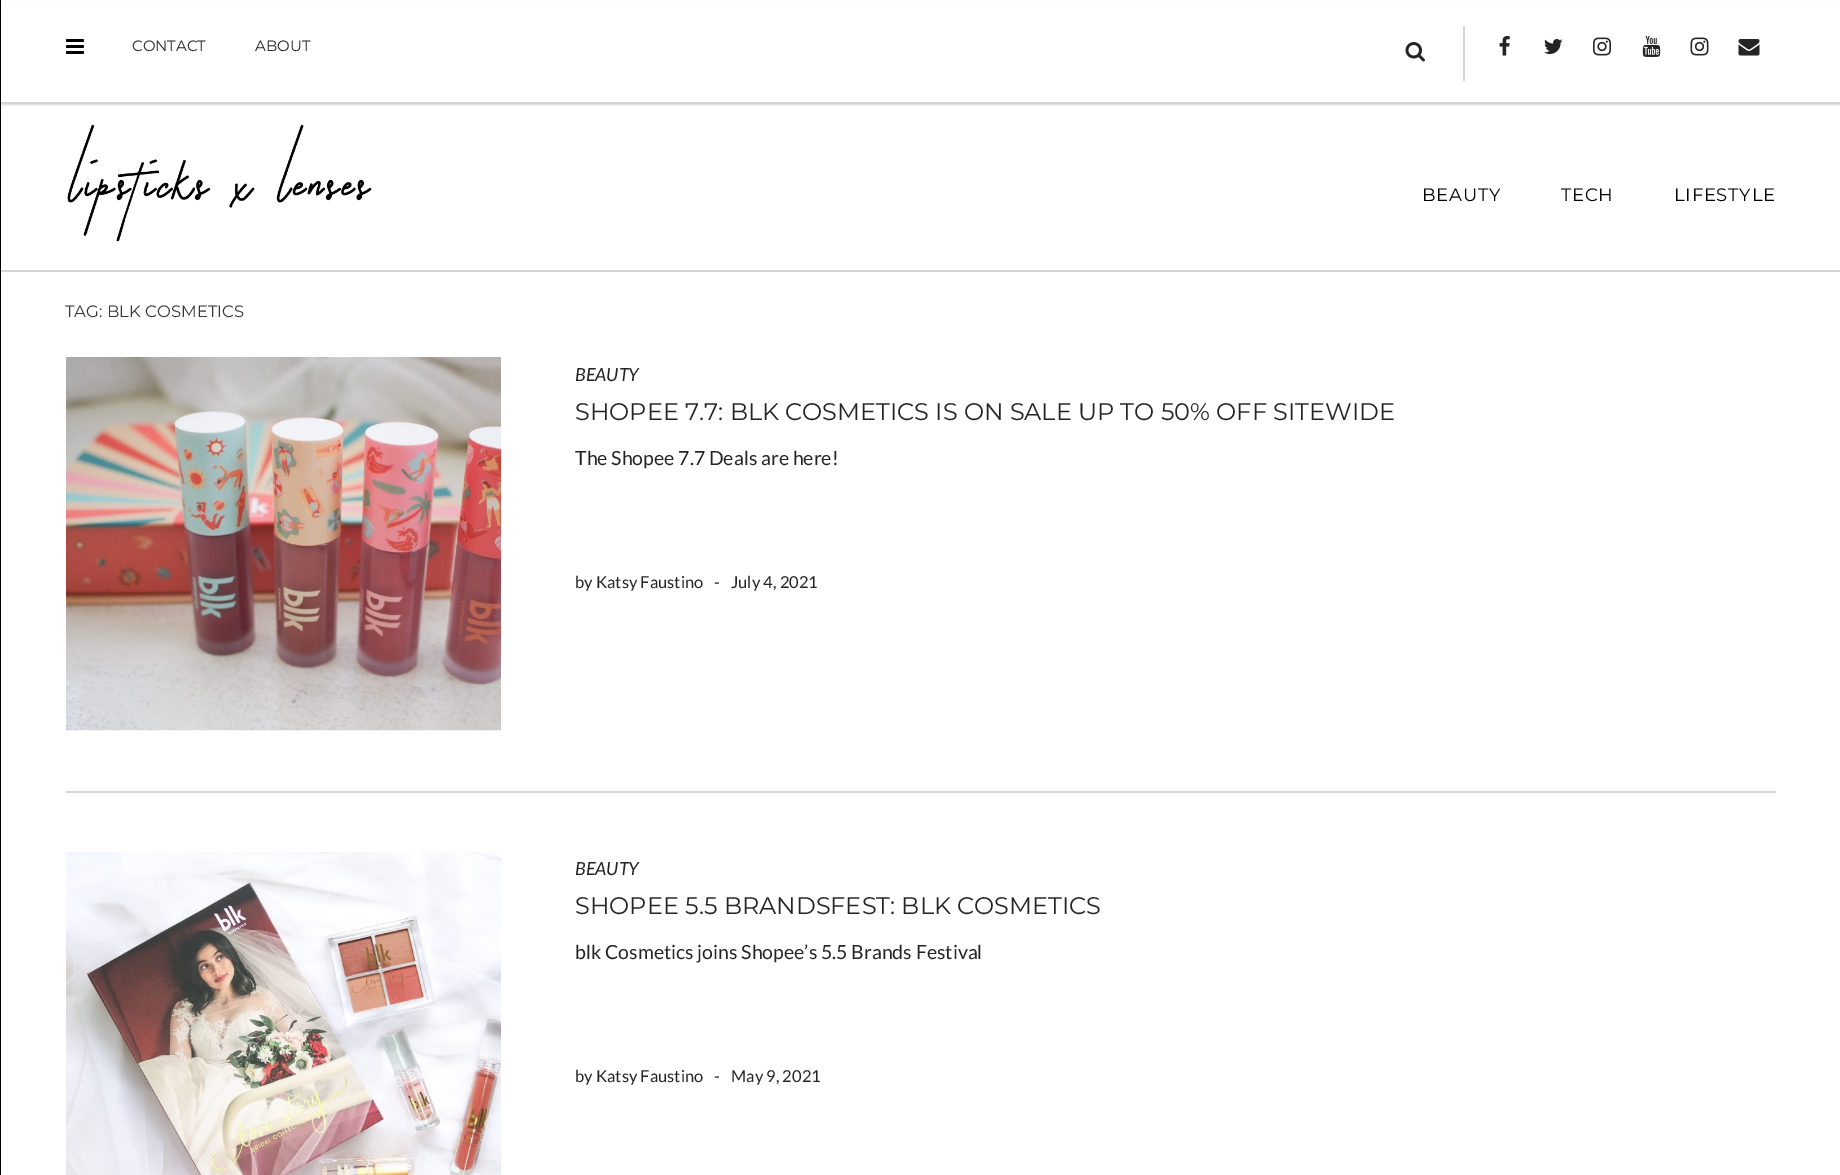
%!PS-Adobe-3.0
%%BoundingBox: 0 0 1840 1175
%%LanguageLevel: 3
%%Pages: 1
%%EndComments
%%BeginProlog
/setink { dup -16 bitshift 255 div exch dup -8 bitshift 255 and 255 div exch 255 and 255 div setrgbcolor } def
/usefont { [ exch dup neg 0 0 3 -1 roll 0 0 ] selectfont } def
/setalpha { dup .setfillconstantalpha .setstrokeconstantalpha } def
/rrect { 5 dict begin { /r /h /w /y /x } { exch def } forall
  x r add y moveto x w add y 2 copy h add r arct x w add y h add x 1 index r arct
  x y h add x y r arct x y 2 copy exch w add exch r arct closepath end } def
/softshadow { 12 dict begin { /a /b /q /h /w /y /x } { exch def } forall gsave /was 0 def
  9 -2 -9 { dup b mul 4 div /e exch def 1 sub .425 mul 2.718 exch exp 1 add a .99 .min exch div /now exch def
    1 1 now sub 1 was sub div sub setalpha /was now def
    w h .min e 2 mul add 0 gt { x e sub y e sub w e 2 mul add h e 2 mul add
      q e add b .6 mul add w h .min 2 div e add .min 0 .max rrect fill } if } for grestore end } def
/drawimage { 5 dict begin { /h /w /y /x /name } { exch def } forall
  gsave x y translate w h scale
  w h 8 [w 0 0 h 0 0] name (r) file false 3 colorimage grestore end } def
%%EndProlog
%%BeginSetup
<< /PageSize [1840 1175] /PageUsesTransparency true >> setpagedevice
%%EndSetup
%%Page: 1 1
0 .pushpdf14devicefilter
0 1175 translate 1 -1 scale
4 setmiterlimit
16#FFFFFF setink
0 0 1840 1175 rectfill
16#D5D5D5 setink
0 270 1840 2 rectfill
2 2 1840 103 0 1 1 softshadow
[
    [0 102 1840 2 16#D5D5D5]
    [0 0 1 1175 16#000000]
    [1 1 1839 101 16#FFFFFF]
] { aload pop setink rectfill } forall
(img1.raw) 66 39 18 15 drawimage
/Montserrat-Regular 15 usefont
16#242424 setink
132 51 moveto (CONTACT) show
255 51 moveto (ABOUT) show
16#D5D5D5 setink
1463 26 2 55 rectfill
(img2.raw) 1405 42 20 20 drawimage
(img3.raw) 1499 36 11 20 drawimage
(img4.raw) 1544 39 19 15 drawimage
(img5.raw) 1593 37 18 19 drawimage
(img6.raw) 1642 36 19 21 drawimage
(img7.raw) 1690 37 19 19 drawimage
(img8.raw) 1738 39 22 17 drawimage
(img9.raw) 67 124 305 118 drawimage
/Montserrat-Regular 18 usefont
16#000000 setink
1422 201 moveto 0.75 0 (BEAUTY) ashow
1561 201 moveto 0.75 0 (TECH) ashow
1674 201 moveto 0.75 0 (LIFESTYLE) ashow
/Montserrat-Regular 16.5 usefont
16#353535 setink
65 317 moveto (TAG: BLK COSMETICS) show
16#D5D5D5 setink
66 791 1710 2 rectfill
(img10.raw) 66 357 435 374 drawimage
/Lato-Italic 18 usefont
16#242424 setink
575 381 moveto (BEAUTY) show
/Montserrat-Regular 24 usefont
575 420 moveto (SHOPEE 7.7: BLK COSMETICS IS ON SALE UP TO 50% OFF SITEWIDE) show
/Lato-Regular 19.5 usefont
575 465 moveto (The Shopee 7.7 Deals are here!) show
/Lato-Regular 16.5 usefont
[
    [(by Katsy Faustino) 575 588]
    [(-) 714 588]
    [(July 4, 2021) 731 588]
] { aload pop moveto show } forall
(img11.raw) 66 852 435 323 drawimage
/Lato-Italic 18 usefont
575 875 moveto (BEAUTY) show
/Montserrat-Regular 24 usefont
575 914 moveto (SHOPEE 5.5 BRANDSFEST: BLK COSMETICS) show
/Lato-Regular 19.5 usefont
575 959 moveto (blk Cosmetics joins Shopee’s 5.5 Brands Festival) show
/Lato-Regular 16.5 usefont
[
    [(by Katsy Faustino) 575 1082]
    [(-) 714 1082]
    [(May 9, 2021) 731 1082]
] { aload pop moveto show } forall
.poppdf14devicefilter showpage
%%EOF
